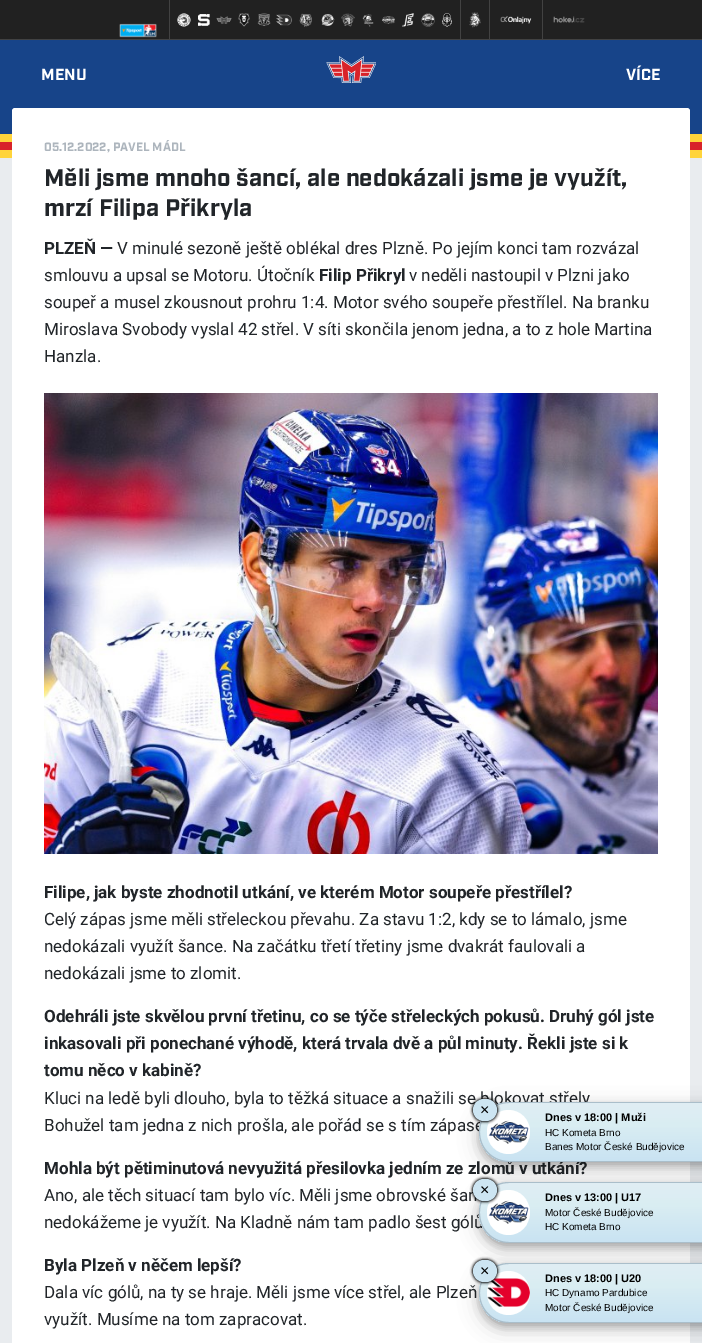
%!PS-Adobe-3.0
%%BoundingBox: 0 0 702 1343
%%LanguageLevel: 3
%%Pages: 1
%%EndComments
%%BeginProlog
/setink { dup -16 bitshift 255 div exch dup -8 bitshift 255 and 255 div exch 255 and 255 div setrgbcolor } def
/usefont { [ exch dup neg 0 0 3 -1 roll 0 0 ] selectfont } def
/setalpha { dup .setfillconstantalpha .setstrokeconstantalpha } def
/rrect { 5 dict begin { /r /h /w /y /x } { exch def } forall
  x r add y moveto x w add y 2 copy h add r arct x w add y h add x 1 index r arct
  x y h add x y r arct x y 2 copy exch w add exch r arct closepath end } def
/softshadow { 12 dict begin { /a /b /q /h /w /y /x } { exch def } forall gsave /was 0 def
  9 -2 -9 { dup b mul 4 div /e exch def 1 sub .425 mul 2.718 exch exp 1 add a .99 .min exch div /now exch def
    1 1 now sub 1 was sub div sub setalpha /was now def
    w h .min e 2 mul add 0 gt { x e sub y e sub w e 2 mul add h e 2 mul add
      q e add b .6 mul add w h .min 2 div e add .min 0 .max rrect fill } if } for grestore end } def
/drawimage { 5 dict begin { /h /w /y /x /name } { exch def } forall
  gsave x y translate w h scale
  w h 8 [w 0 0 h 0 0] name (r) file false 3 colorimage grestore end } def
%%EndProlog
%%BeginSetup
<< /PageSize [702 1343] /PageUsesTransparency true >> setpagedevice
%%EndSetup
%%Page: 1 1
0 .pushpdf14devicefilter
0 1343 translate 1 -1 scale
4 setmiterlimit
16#E9ECEF setink
0 0 702 1343 rectfill
[
    [0 0 702 39 16#212121]
    [0 39 702 1 16#424242]
    [169 0 1 40 16#424242]
] { aload pop setink rectfill } forall
(img1.raw) 177 13 14 14 drawimage
(img2.raw) 198 14 12 12 drawimage
(img3.raw) 216 16 16 8 drawimage
(img4.raw) 238 13 12 14 drawimage
(img5.raw) 257 13 14 13 drawimage
(img6.raw) 276 14 16 12 drawimage
(img7.raw) 299 13 13 14 drawimage
(img8.raw) 321 14 14 12 drawimage
(img9.raw) 341 13 14 14 drawimage
(img10.raw) 362 14 12 13 drawimage
(img11.raw) 382 16 13 8 drawimage
(img12.raw) 402 13 12 14 drawimage
(img13.raw) 421 13 14 14 drawimage
(img14.raw) 442 13 10 14 drawimage
460 0 1 40 rectfill
(img15.raw) 469 12 12 16 drawimage
489 0 1 40 rectfill
(img16.raw) 500 16 32 8 drawimage
542 0 1 40 rectfill
(img17.raw) 553 16 32 7 drawimage
(img18.raw) 119 23 38 15 drawimage
16#174489 setink
0 40 702 94 rectfill
(img19.raw) 326 56 50 27 drawimage
/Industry-Bold 16 usefont
16#FFFFFF setink
41 80 moveto (MENU) show
626 80 moveto (VÍCE) show
[
    [0 134 702 8 16#FFD43B]
    [0 142 702 8 16#D8232A]
    [0 150 702 8 16#FFD43B]
] { aload pop setink rectfill } forall
16#FFFFFF setink
12 108 678 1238 3 rrect fill
/Industry-Bold 12 usefont
16#ADB5BD setink
44 151 moveto (05.12.2022, PAVEL MÁDL) show
/Industry-Bold 24 usefont
16#212529 setink
44 186 moveto (Měli jsme mnoho šancí, ale nedokázali jsme je využít,) show
44 216 moveto (mrzí Filipa Přikryla) show
/Roboto-Bold 17 usefont
44 254 moveto (PLZEŇ —) show
/Roboto-Regular 17 usefont
117 254 moveto (V minulé sezoně ještě oblékal dres Plzně. Po jejím konci tam rozvázal) show
44 281 moveto (smlouvu a upsal se Motoru. Útočník) show
/Roboto-Bold 17 usefont
319 281 moveto (Filip Přikryl) show
/Roboto-Regular 17 usefont
[
    [(v neděli nastoupil v Plzni jako) 409 281]
    [(soupeř a musel zkousnout prohru 1:4. Motor svého soupeře přestřílel. Na branku) 44 308]
    [(Miroslava Svobody vyslal 42 střel. V síti skončila jenom jedna, a to z hole Martina) 44 335]
    [(Hanzla.) 44 362]
] { aload pop moveto show } forall
(img20.raw) 44 393 614 461 drawimage
/Roboto-Bold 17 usefont
44 898 moveto (Filipe, jak byste zhodnotil utkání, ve kterém Motor soupeře přestřílel?) show
/Roboto-Regular 17 usefont
[
    [(Celý zápas jsme měli střeleckou převahu. Za stavu 1:2, kdy se to lámalo, jsme) 44 925]
    [(nedokázali využít šance. Na začátku třetí třetiny jsme dvakrát faulovali a) 44 952]
    [(nedokázali jsme to zlomit.) 44 979]
] { aload pop moveto show } forall
/Roboto-Bold 17 usefont
[
    [(Odehráli jste skvělou první třetinu, co se týče střeleckých pokusů. Druhý gól jste) 44 1022]
    [(inkasovali při ponechané výhodě, která trvala dvě a půl minuty. Řekli jste si k) 44 1049]
    [(tomu něco v kabině?) 44 1076]
] { aload pop moveto show } forall
/Roboto-Regular 17 usefont
44 1104 moveto (Kluci na ledě byli dlouho, byla to těžká situace a snažili se blokovat střely) show
44 1131 moveto (Bohužel tam jedna z nich prošla, ale pořád se s tím zápase) show
/Roboto-Bold 17 usefont
44 1174 moveto (Mohla být pětiminutová nevyužitá přesilovka jedním ze zlomů v utkání?) show
/Roboto-Regular 17 usefont
44 1201 moveto (Ano, ale těch situací tam bylo víc. Měli jsme obrovské šan) show
44 1228 moveto (nedokážeme je využít. Na Kladně nám tam padlo šest gólů) show
/Roboto-Bold 17 usefont
44 1271 moveto (Byla Plzeň v něčem lepší?) show
/Roboto-Regular 17 usefont
44 1298 moveto (Dala víc gólů, na ty se hraje. Měli jsme více střel, ale Plzeň) show
44 1325 moveto (využít. Musíme na tom zapracovat.) show
16#000000 setink
479 1108 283 60 30 10 0.19 softshadow
479 1106 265 60 30 4 0.2 softshadow
gsave
509 1102 moveto 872 1102 lineto 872 1162 lineto 509 1162 lineto 492.5 1162 479 1148.5 479 1132 curveto 479 1115.5 492.5 1102 509 1102 curveto closepath clip newpath
gsave 479 1103 moveto 702 1103 lineto 702 1161 lineto 479 1161 lineto closepath clip newpath
<< /ShadingType 2 /ColorSpace /DeviceRGB /Coords [676 1103 676 1161] /Extend [true true] /Function << /FunctionType 3 /Domain [0 1] /Functions [<< /FunctionType 2 /Domain [0 1] /C0 [0.878 0.929 0.957] /C1 [0.851 0.929 0.949] /N 1 >> << /FunctionType 2 /Domain [0 1] /C0 [0.851 0.929 0.949] /C1 [0.788 0.89 0.949] /N 1 >>] /Bounds [0.4] /Encode [0 1 0 1] >> >> shfill grestore
grestore
16#AABECA setink
509 1102 moveto 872 1102 lineto 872 1162 lineto 509 1162 lineto 492 1162 479 1149 479 1132 curveto 479 1115 492 1102 509 1102 curveto closepath 509 1103 moveto 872 1103 lineto 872 1161 lineto 509 1161 lineto 493 1161 480 1148 480 1132 curveto 480 1116 493 1103 509 1103 curveto closepath eofill
16#FFFFFF setink
487 1110 43 44 21.5 rrect fill
(img21.raw) 488 1120 41 24 drawimage
16#000000 setink
473 1099 24 22 11 1.5 1 softshadow
473 1099 24 22 11 1.5 1 softshadow
16#CDE5F2 setink
473 1099 24 22 11 rrect fill
/LiberationSans-Regular 16 usefont
16#000000 setink
480 1115 moveto (×) show
/LiberationSans-Bold 11 usefont
545 1121 moveto (Dnes v 18:00 | Muži) show
/LiberationSans-Regular 10 usefont
545 1136 moveto (HC Kometa Brno) show
545 1150 moveto (Banes Motor České Budějovice) show
479 1188 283 61 30 10 0.19 softshadow
479 1186 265 61 30 4 0.2 softshadow
gsave
509 1182 moveto 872 1182 lineto 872 1243 lineto 509 1243 lineto 492.5 1243 479 1229.5 479 1213 curveto 479 1212 lineto 479 1195.5 492.5 1182 509 1182 curveto closepath clip newpath
gsave 479 1183 moveto 702 1183 lineto 702 1242 lineto 479 1242 lineto closepath clip newpath
<< /ShadingType 2 /ColorSpace /DeviceRGB /Coords [676 1183 676 1242] /Extend [true true] /Function << /FunctionType 3 /Domain [0 1] /Functions [<< /FunctionType 2 /Domain [0 1] /C0 [0.878 0.929 0.957] /C1 [0.851 0.929 0.949] /N 1 >> << /FunctionType 2 /Domain [0 1] /C0 [0.851 0.929 0.949] /C1 [0.788 0.89 0.949] /N 1 >>] /Bounds [0.4] /Encode [0 1 0 1] >> >> shfill grestore
grestore
16#AABECA setink
509 1182 moveto 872 1182 lineto 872 1243 lineto 509 1243 lineto 492 1243 479 1230 479 1213 curveto 479 1212 lineto 479 1195 492 1182 509 1182 curveto closepath 509 1183 moveto 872 1183 lineto 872 1242 lineto 509 1242 lineto 493 1242 480 1229 480 1213 curveto 480 1212 lineto 480 1196 493 1183 509 1183 curveto closepath eofill
16#FFFFFF setink
508.5 1190 moveto 520.5 1190 530 1200 530 1212.5 curveto 530 1225 520.5 1235 508.5 1235 curveto 496.5 1235 487 1225 487 1212.5 curveto 487 1200 496.5 1190 508.5 1190 curveto closepath fill
(img22.raw) 488 1200 41 24 drawimage
16#000000 setink
473 1179 24 22 11 1.5 1 softshadow
473 1179 24 22 11 1.5 1 softshadow
16#CDE5F2 setink
473 1179 24 22 11 rrect fill
/LiberationSans-Regular 16 usefont
16#000000 setink
480 1195 moveto (×) show
/LiberationSans-Bold 11 usefont
545 1201 moveto (Dnes v 13:00 | U17) show
/LiberationSans-Regular 10 usefont
545 1216 moveto (Motor České Budějovice) show
545 1230 moveto (HC Kometa Brno) show
479 1269 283 60 30 10 0.19 softshadow
479 1267 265 60 30 4 0.2 softshadow
gsave
509 1263 moveto 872 1263 lineto 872 1323 lineto 509 1323 lineto 492.5 1323 479 1309.5 479 1293 curveto 479 1276.5 492.5 1263 509 1263 curveto closepath clip newpath
gsave 479 1264 moveto 702 1264 lineto 702 1322 lineto 479 1322 lineto closepath clip newpath
<< /ShadingType 2 /ColorSpace /DeviceRGB /Coords [676 1264 676 1322] /Extend [true true] /Function << /FunctionType 3 /Domain [0 1] /Functions [<< /FunctionType 2 /Domain [0 1] /C0 [0.878 0.929 0.957] /C1 [0.851 0.929 0.949] /N 1 >> << /FunctionType 2 /Domain [0 1] /C0 [0.851 0.929 0.949] /C1 [0.788 0.89 0.949] /N 1 >>] /Bounds [0.4] /Encode [0 1 0 1] >> >> shfill grestore
grestore
16#AABECA setink
509 1263 moveto 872 1263 lineto 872 1323 lineto 509 1323 lineto 492 1323 479 1310 479 1293 curveto 479 1276 492 1263 509 1263 curveto closepath 509 1264 moveto 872 1264 lineto 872 1322 lineto 509 1322 lineto 493 1322 480 1309 480 1293 curveto 480 1277 493 1264 509 1264 curveto closepath eofill
16#FFFFFF setink
487 1271 43 44 21.5 rrect fill
(img23.raw) 487 1278 43 29 drawimage
16#000000 setink
473 1260 24 22 11 1.5 1 softshadow
473 1260 24 22 11 1.5 1 softshadow
16#CDE5F2 setink
473 1260 24 22 11 rrect fill
/LiberationSans-Regular 16 usefont
16#000000 setink
480 1276 moveto (×) show
/LiberationSans-Bold 11 usefont
545 1282 moveto (Dnes v 18:00 | U20) show
/LiberationSans-Regular 10 usefont
545 1296 moveto (HC Dynamo Pardubice) show
545 1311 moveto (Motor České Budějovice) show
.poppdf14devicefilter showpage
%%EOF
